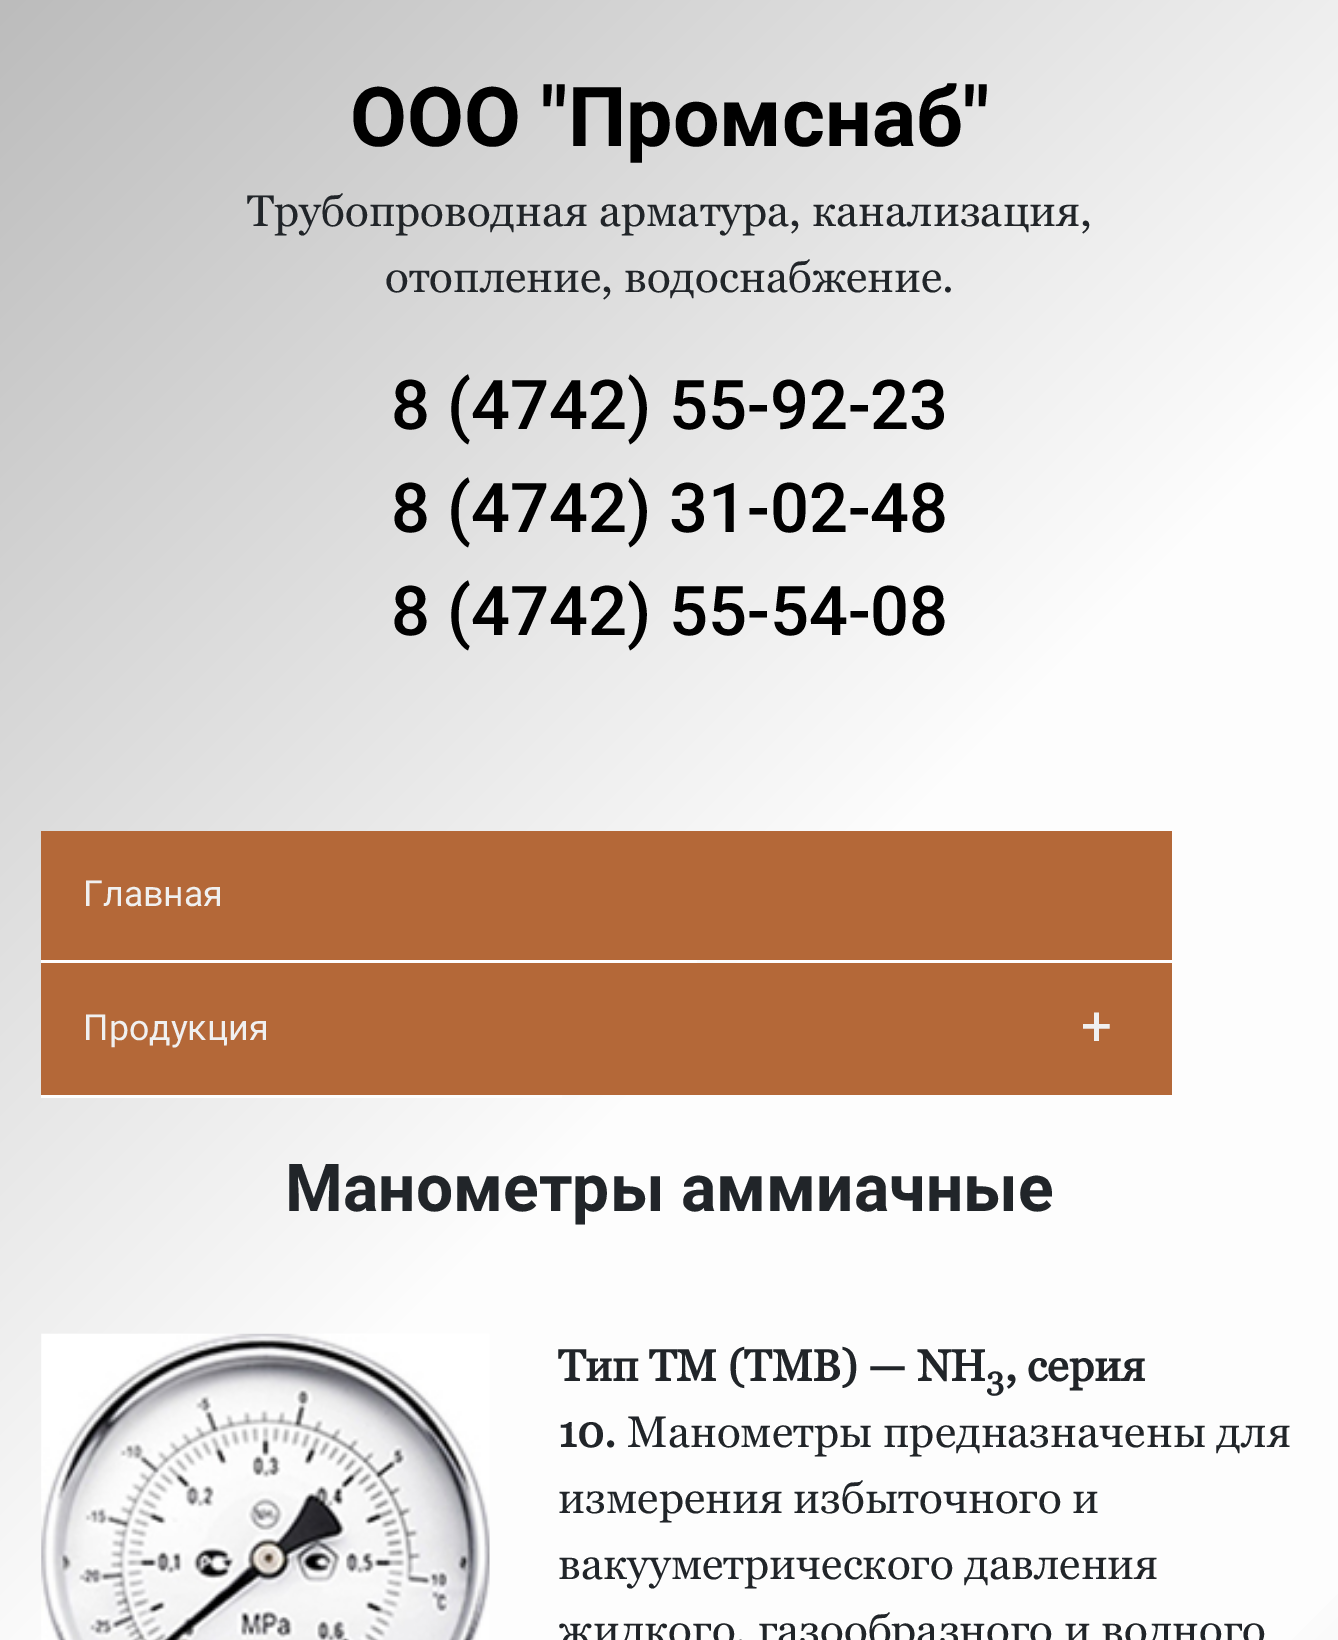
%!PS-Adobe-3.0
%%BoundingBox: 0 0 1338 1640
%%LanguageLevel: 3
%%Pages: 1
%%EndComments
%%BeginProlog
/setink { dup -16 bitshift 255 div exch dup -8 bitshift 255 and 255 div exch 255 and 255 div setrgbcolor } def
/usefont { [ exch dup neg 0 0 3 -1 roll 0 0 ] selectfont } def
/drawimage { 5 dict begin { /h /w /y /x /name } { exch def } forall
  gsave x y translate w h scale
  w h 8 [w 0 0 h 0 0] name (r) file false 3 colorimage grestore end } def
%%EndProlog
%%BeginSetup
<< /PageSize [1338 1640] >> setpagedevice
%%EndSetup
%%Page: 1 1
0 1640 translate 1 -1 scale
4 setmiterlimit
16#FFFFFF setink
0 0 1338 1640 rectfill
gsave 0 0 moveto 1338 0 lineto 1338 1640 lineto 0 1640 lineto closepath clip newpath
<< /ShadingType 2 /ColorSpace /DeviceRGB /Coords [-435 435 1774 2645] /Extend [true true] /Function << /FunctionType 3 /Domain [0 1] /Functions [<< /FunctionType 2 /Domain [0 1] /C0 [0.737 0.737 0.737] /C1 [0.992 0.992 0.992] /N 1 >> << /FunctionType 2 /Domain [0 1] /C0 [0.992 0.992 0.992] /C1 [0.992 0.992 0.992] /N 1 >> << /FunctionType 2 /Domain [0 1] /C0 [0.992 0.992 0.992] /C1 [0.741 0.741 0.741] /N 1 >>] /Bounds [0.39 0.66] /Encode [0 1 0 1 0 1] >> >> shfill grestore
/Roboto-Bold 82.5 usefont
16#000000 setink
350 146 moveto (ООО "Промснаб") show
/Georgia-Regular 44 usefont
16#212529 setink
247 226 moveto (Трубопроводная арматура, канализация,) show
385 292 moveto (отопление, водоснабжение.) show
/Roboto-Medium 68.75 usefont
16#000000 setink
[
    [(8 \(4742\) 55-92-23) 391 429]
    [(8 \(4742\) 31-02-48) 391 532]
    [(8 \(4742\) 55-54-08) 391 635]
] { aload pop moveto show } forall
16#B46838 setink
41 831 1131 129 rectfill
16#FDFDFD setink
41 960 656 3 rectfill
/Roboto-Regular 35.75 usefont
16#F0F0F0 setink
83 906 moveto (Главная) show
16#B46838 setink
41 963 1131 132 rectfill
16#FDFDFD setink
41 1095 521 3 rectfill
16#F0F0F0 setink
83 1040 moveto (Продукция) show
/Roboto-Regular 55 usefont
1081 1045 moveto (+) show
/Roboto-Bold 66 usefont
16#212529 setink
285 1211 moveto (Манометры аммиачные) show
(img1.raw) 41 1333 449 307 drawimage
/Georgia-Bold 44 usefont
558 1381 moveto (Тип ТМ \(ТМВ\) — NH) show
/Georgia-Bold 33 usefont
986 1390 moveto (3) show
/Georgia-Bold 44 usefont
1005 1381 moveto (, серия) show
558 1447 moveto (10.) show
/Georgia-Regular 44 usefont
[
    [(Манометры предназначены для) 627 1447]
    [(измерения избыточного и) 558 1513]
    [(вакууметрического давления) 558 1579]
    [(жидкого, газообразного и водного) 558 1645]
] { aload pop moveto show } forall
showpage
%%EOF
